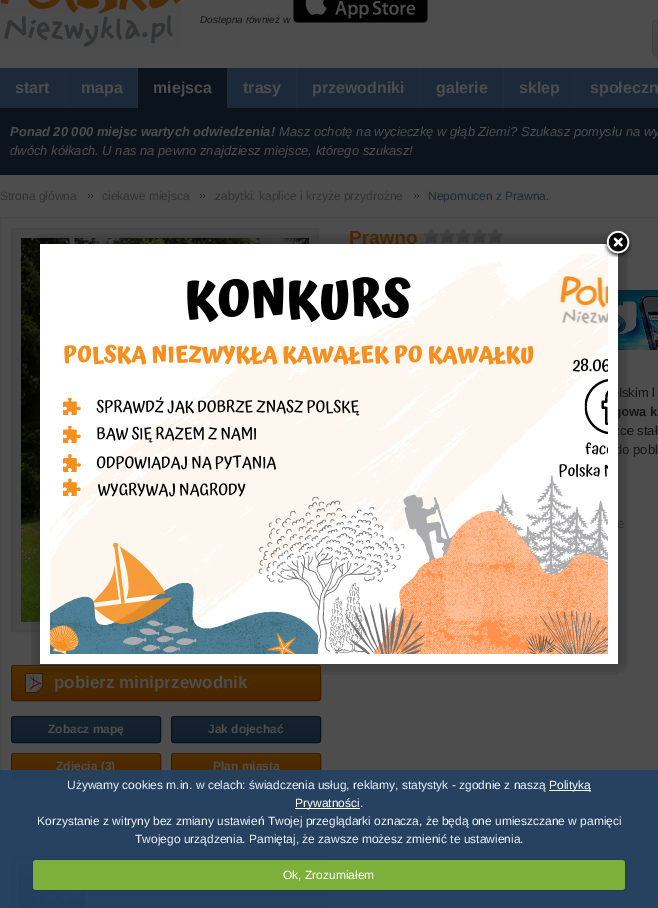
%!PS-Adobe-3.0
%%BoundingBox: 0 0 658 908
%%LanguageLevel: 3
%%Pages: 1
%%EndComments
%%BeginProlog
/setink { dup -16 bitshift 255 div exch dup -8 bitshift 255 and 255 div exch 255 and 255 div setrgbcolor } def
/usefont { [ exch dup neg 0 0 3 -1 roll 0 0 ] selectfont } def
/setalpha { dup .setfillconstantalpha .setstrokeconstantalpha } def
/rrect { 5 dict begin { /r /h /w /y /x } { exch def } forall
  x r add y moveto x w add y 2 copy h add r arct x w add y h add x 1 index r arct
  x y h add x y r arct x y 2 copy exch w add exch r arct closepath end } def
/softshadow { 12 dict begin { /a /b /q /h /w /y /x } { exch def } forall gsave /was 0 def
  9 -2 -9 { dup b mul 4 div /e exch def 1 sub .425 mul 2.718 exch exp 1 add a .99 .min exch div /now exch def
    1 1 now sub 1 was sub div sub setalpha /was now def
    w h .min e 2 mul add 0 gt { x e sub y e sub w e 2 mul add h e 2 mul add
      q e add b .6 mul add w h .min 2 div e add .min 0 .max rrect fill } if } for grestore end } def
/drawimage { 5 dict begin { /h /w /y /x /name } { exch def } forall
  gsave x y translate w h scale
  w h 8 [w 0 0 h 0 0] name (r) file false 3 colorimage grestore end } def
%%EndProlog
%%BeginSetup
<< /PageSize [658 908] /PageUsesTransparency true >> setpagedevice
%%EndSetup
%%Page: 1 1
0 .pushpdf14devicefilter
0 908 translate 1 -1 scale
4 setmiterlimit
16#4D4D4D setink
0 0 658 908 rectfill
(img1.raw) 0 0 181 47 drawimage
/LiberationSans-Italic 10 usefont
16#141414 setink
200 23 moveto (Dostepna również w) show
(img2.raw) 293 0 135 23 drawimage
(img3.raw) 652 19 6 38 drawimage
16#1C2938 setink
0 68 658 40 rectfill
16#1F2C3B setink
65 68 1 40 rectfill
/LiberationSans-Bold 16 usefont
16#4D4D4D setink
15 93 moveto (start) show
16#1F2C3B setink
137 68 1 40 rectfill
16#4D4D4D setink
81 93 moveto (mapa) show
16#0B141D setink
138 68 89 40 rectfill
16#1F2C3B setink
227 68 1 40 rectfill
16#4D4D4D setink
153 93 moveto (miejsca) show
16#1F2C3B setink
296 68 1 40 rectfill
16#4D4D4D setink
243 93 moveto (trasy) show
16#1F2C3B setink
420 68 1 40 rectfill
16#4D4D4D setink
312 93 moveto (przewodniki) show
16#1F2C3B setink
503 68 1 40 rectfill
16#4D4D4D setink
436 93 moveto (galerie) show
16#1F2C3B setink
574 68 1 40 rectfill
16#4D4D4D setink
519 93 moveto (sklep) show
590 93 moveto (społeczn) show
16#0B141D setink
0 108 658 67 rectfill
/LiberationSans-BoldItalic 13 usefont
16#4D4D4D setink
10 136 moveto (Ponad 20 000 miejsc wartych odwiedzenia!) show
/LiberationSans-Italic 13 usefont
279 136 moveto (Masz ochotę na wycieczkę w głąb Ziemi? Szukasz pomysłu na wy) show
10 155 moveto (dwóch kółkach. U nas na pewno znajdziesz miejsce, którego szukasz!) show
(img4.raw) 88 194 5 4 drawimage
/LiberationSans-Regular 12 usefont
16#313131 setink
0 200 moveto (Strona główna) show
(img4.raw) 200 194 5 4 drawimage
102 200 moveto (ciekawe miejsca) show
(img4.raw) 414 194 5 4 drawimage
215 200 moveto (zabytki: kaplice i krzyże przydrożne) show
16#1C2938 setink
428 200 moveto (Nepomucen z Prawna.) show
16#484848 setink
0.5 217.5 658 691 rectstroke
/LiberationSans-Bold 19 usefont
16#4D2800 setink
349 244 moveto (Prawno) show
(img5.raw) 423 228 80 16 drawimage
(img6.raw) 618 290 40 60 drawimage
/LiberationSans-Regular 13 usefont
16#141414 setink
619 397 moveto (lskim l) show
/LiberationSans-Bold 13 usefont
621 416 moveto (owa k) show
/LiberationSans-Regular 13 usefont
620 435 moveto (ce stał) show
615 454 moveto (do pobl) show
16#2A333C setink
617 528 moveto (e) show
16#484848 setink
11.5 228.5 moveto 318.5 228.5 lineto 318.5 631.5 lineto 11.5 631.5 lineto closepath gsave fill grestore
16#464646 setink
stroke
(img7.raw) 21 238 288 384 drawimage
(img8.raw) 11 666 310 35 drawimage
16#3E1A00 setink
11.5 665.5 309 35 2.5 rrect stroke
(img9.raw) 25 673 18 20 drawimage
/LiberationSans-Bold 17 usefont
16#4D4D4D setink
54 688 moveto (pobierz miniprzewodnik) show
(img10.raw) 11 717 150 26 drawimage
16#08121D setink
11.5 716.5 149 26 2.5 rrect stroke
/LiberationSans-Bold 12 usefont
16#4D4D4D setink
48 733 moveto (Zobacz mapę) show
(img11.raw) 11 754 150 26 drawimage
16#3E1A00 setink
11.5 753.5 149 26 2.5 rrect stroke
16#4D4D4D setink
56 770 moveto (Zdjęcia \(3\)) show
(img10.raw) 171 717 150 26 drawimage
16#08121D setink
171.5 716.5 149 26 2.5 rrect stroke
16#4D4D4D setink
208 733 moveto (Jak dojechać) show
(img11.raw) 171 754 150 26 drawimage
16#3E1A00 setink
171.5 753.5 149 26 2.5 rrect stroke
16#4D4D4D setink
213 770 moveto (Plan miasta) show
16#4A4A4A setink
11.5 856.5 moveto 326.5 856.5 lineto 326.5 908.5 lineto 11.5 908.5 lineto closepath gsave fill grestore
16#474747 setink
stroke
16#4D4D4D setink
14.5 859.5 moveto 89.5 859.5 lineto 89.5 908.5 lineto 14.5 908.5 lineto closepath gsave fill grestore
16#464646 setink
stroke
(img12.raw) 19 864 66 44 drawimage
16#FFFFFF setink
40 244 578 420 rectfill
(img14.raw) 40 234 578 10 drawimage
(img15.raw) 618 234 10 10 drawimage
(img17.raw) 50 254 558 400 drawimage
(img18.raw) 618 244 10 420 drawimage
(img13.raw) 604 230 28 28 drawimage
16#444444 setink
36 235 4 3 rectfill
(img16.raw) 31 246 9 418 drawimage
(img19.raw) 30 664 10 8 drawimage
(img20.raw) 40 664 578 11 drawimage
(img21.raw) 618 664 9 9 drawimage
0.95 setalpha
16#244161 setink
0 770 658 138 rectfill
/LiberationSans-Regular 12 usefont
1 setalpha
16#EDF4FB setink
67 789 moveto (Używamy cookies m.in. w celach: świadczenia usług, reklamy, statystyk - zgodnie z naszą) show
16#FFFFFF setink
549 790 42 1 rectfill
549 789 moveto (Polityką) show
295 808 65 1 rectfill
295 807 moveto (Prywatności) show
16#EDF4FB setink
[
    [(.) 360 807]
    [(Korzystanie z witryny bez zmiany ustawień Twojej przeglądarki oznacza, że będą one umieszczane w pamięci) 37 825]
    [(Twojego urządzenia. Pamiętaj, że zawsze możesz zmienić te ustawienia.) 135 843]
] { aload pop moveto show } forall
16#000000 setink
33 860 592 30 3 1 0.25 softshadow
16#7DAF3B setink
33 860 592 30 3 rrect fill
16#FFFFFF setink
283 879 moveto (Ok, Zrozumiałem) show
.poppdf14devicefilter showpage
%%EOF
